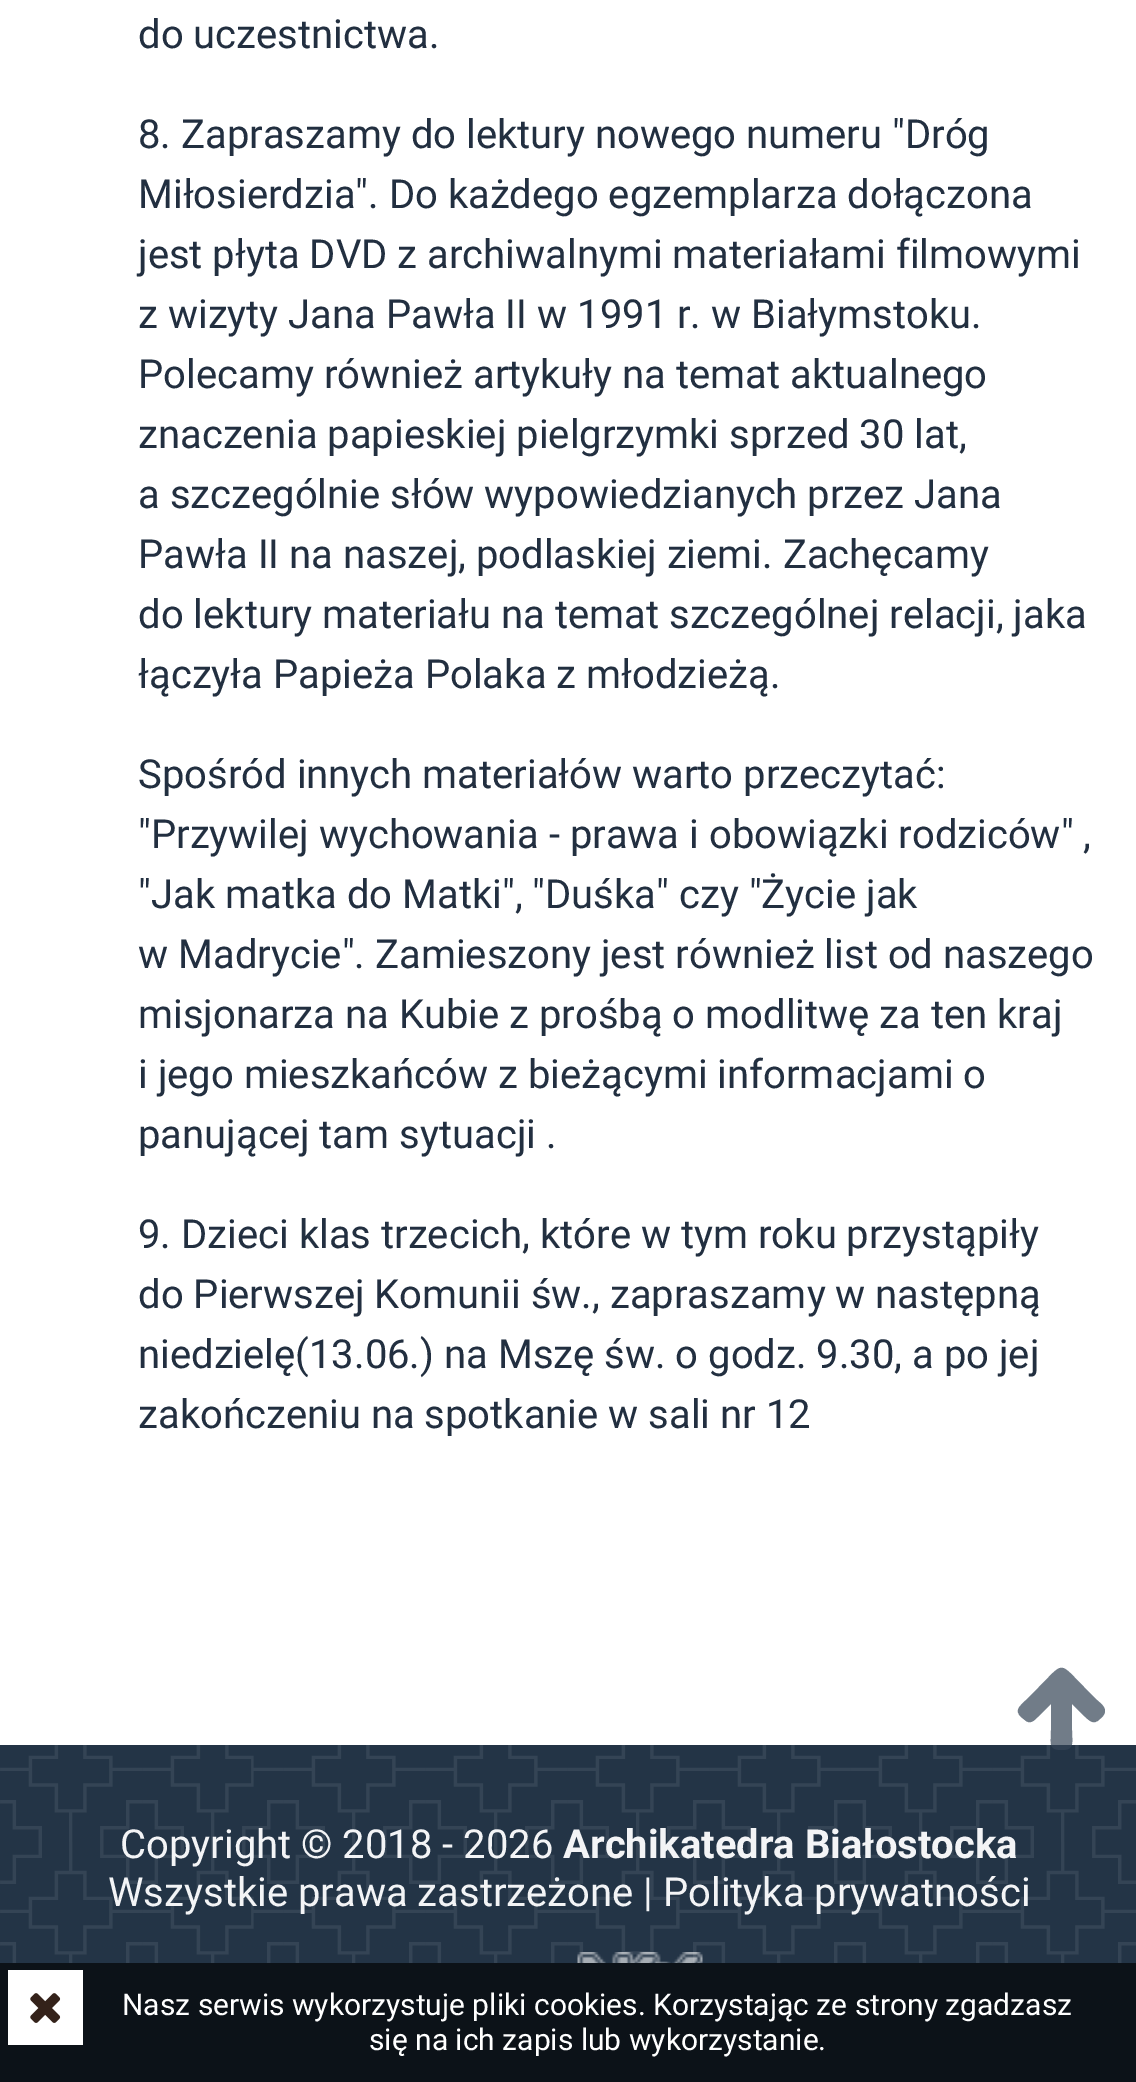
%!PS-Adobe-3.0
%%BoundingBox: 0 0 1136 2082
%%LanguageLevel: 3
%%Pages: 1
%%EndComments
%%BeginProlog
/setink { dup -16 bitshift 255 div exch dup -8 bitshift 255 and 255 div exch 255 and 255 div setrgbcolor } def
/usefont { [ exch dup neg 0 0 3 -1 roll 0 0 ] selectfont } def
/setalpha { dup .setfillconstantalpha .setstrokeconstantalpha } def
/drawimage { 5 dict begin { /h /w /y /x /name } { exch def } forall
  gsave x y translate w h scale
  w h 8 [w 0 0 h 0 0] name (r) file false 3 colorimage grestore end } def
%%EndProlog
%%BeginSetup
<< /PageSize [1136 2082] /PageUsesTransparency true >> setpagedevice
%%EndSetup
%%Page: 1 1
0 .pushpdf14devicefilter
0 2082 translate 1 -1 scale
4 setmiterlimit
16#FFFFFF setink
0 0 1136 2082 rectfill
/Roboto-Regular 40 usefont
16#222F40 setink
[
    [(do uczestnictwa.) 138 48]
    [(8. Zapraszamy do lektury nowego numeru "Dróg) 138 148]
    [(Miłosierdzia". Do każdego egzemplarza dołączona) 138 208]
    [(jest płyta DVD z archiwalnymi materiałami filmowymi) 138 268]
    [(z wizyty Jana Pawła II w 1991 r. w Białymstoku.) 138 328]
    [(Polecamy również artykuły na temat aktualnego) 138 388]
    [(znaczenia papieskiej pielgrzymki sprzed 30 lat,) 138 448]
    [(a szczególnie słów wypowiedzianych przez Jana) 138 508]
    [(Pawła II na naszej, podlaskiej ziemi. Zachęcamy) 138 568]
    [(do lektury materiału na temat szczególnej relacji, jaka) 138 628]
    [(łączyła Papieża Polaka z młodzieżą.) 138 688]
    [(Spośród innych materiałów warto przeczytać:) 138 788]
    [("Przywilej wychowania - prawa i obowiązki rodziców" ,) 138 848]
    [("Jak matka do Matki", "Duśka" czy "Życie jak) 138 908]
    [(w Madrycie". Zamieszony jest również list od naszego) 138 968]
    [(misjonarza na Kubie z prośbą o modlitwę za ten kraj) 138 1028]
    [(i jego mieszkańców z bieżącymi informacjami o) 138 1088]
    [(panującej tam sytuacji .) 138 1148]
    [(9. Dzieci klas trzecich, które w tym roku przystąpiły) 138 1248]
    [(do Pierwszej Komunii św., zapraszamy w następną) 138 1308]
    [(niedzielę\(13.06.\) na Mszę św. o godz. 9.30, a po jej) 138 1368]
    [(zakończeniu na spotkanie w sali nr 12) 138 1428]
] { aload pop moveto show } forall
16#233446 setink
0 1745 1136 218 rectfill
(img1.raw) 0 1745 1136 218 drawimage
0.7 setalpha
16#344455 setink
1105 1711 moveto 1105 1715 1102 1717 1100 1719 curveto 1093 1726 1089 1720 1083 1715 curveto 1072 1704 lineto 1072 1730 lineto 1072 1742 1075 1750 1062 1750 curveto 1048 1750 1051 1744 1051 1730 curveto 1051 1704 lineto 1040 1715 lineto 1036 1718 1032 1725 1026 1721 curveto 1021 1717 lineto 1014 1710 1020 1706 1026 1700 curveto 1038 1688 lineto 1065 1661 1058 1661 1085 1688 curveto 1097 1700 lineto 1100 1703 1105 1706 1105 1711 curveto closepath fill
1 setalpha
16#F3F4F6 setink
120 1858 moveto (Copyright © 2018 - 2026) show
/Roboto-Bold 40 usefont
563 1858 moveto (Archikatedra Białostocka) show
/Roboto-Regular 40 usefont
108 1906 moveto (Wszystkie prawa zastrzeżone | Polityka prywatności) show
(img2.raw) 577 1952 126 11 drawimage
16#0C1218 setink
0 1963 1136 119 rectfill
16#FFFFFF setink
8 1970 75 75 rectfill
(img3.raw) 30 1993 31 30 drawimage
/Roboto-Regular 30 usefont
122 2015 moveto (Nasz serwis wykorzystuje pliki cookies. Korzystając ze strony zgadzasz) show
369 2050 moveto (się na ich zapis lub wykorzystanie.) show
.poppdf14devicefilter showpage
%%EOF
